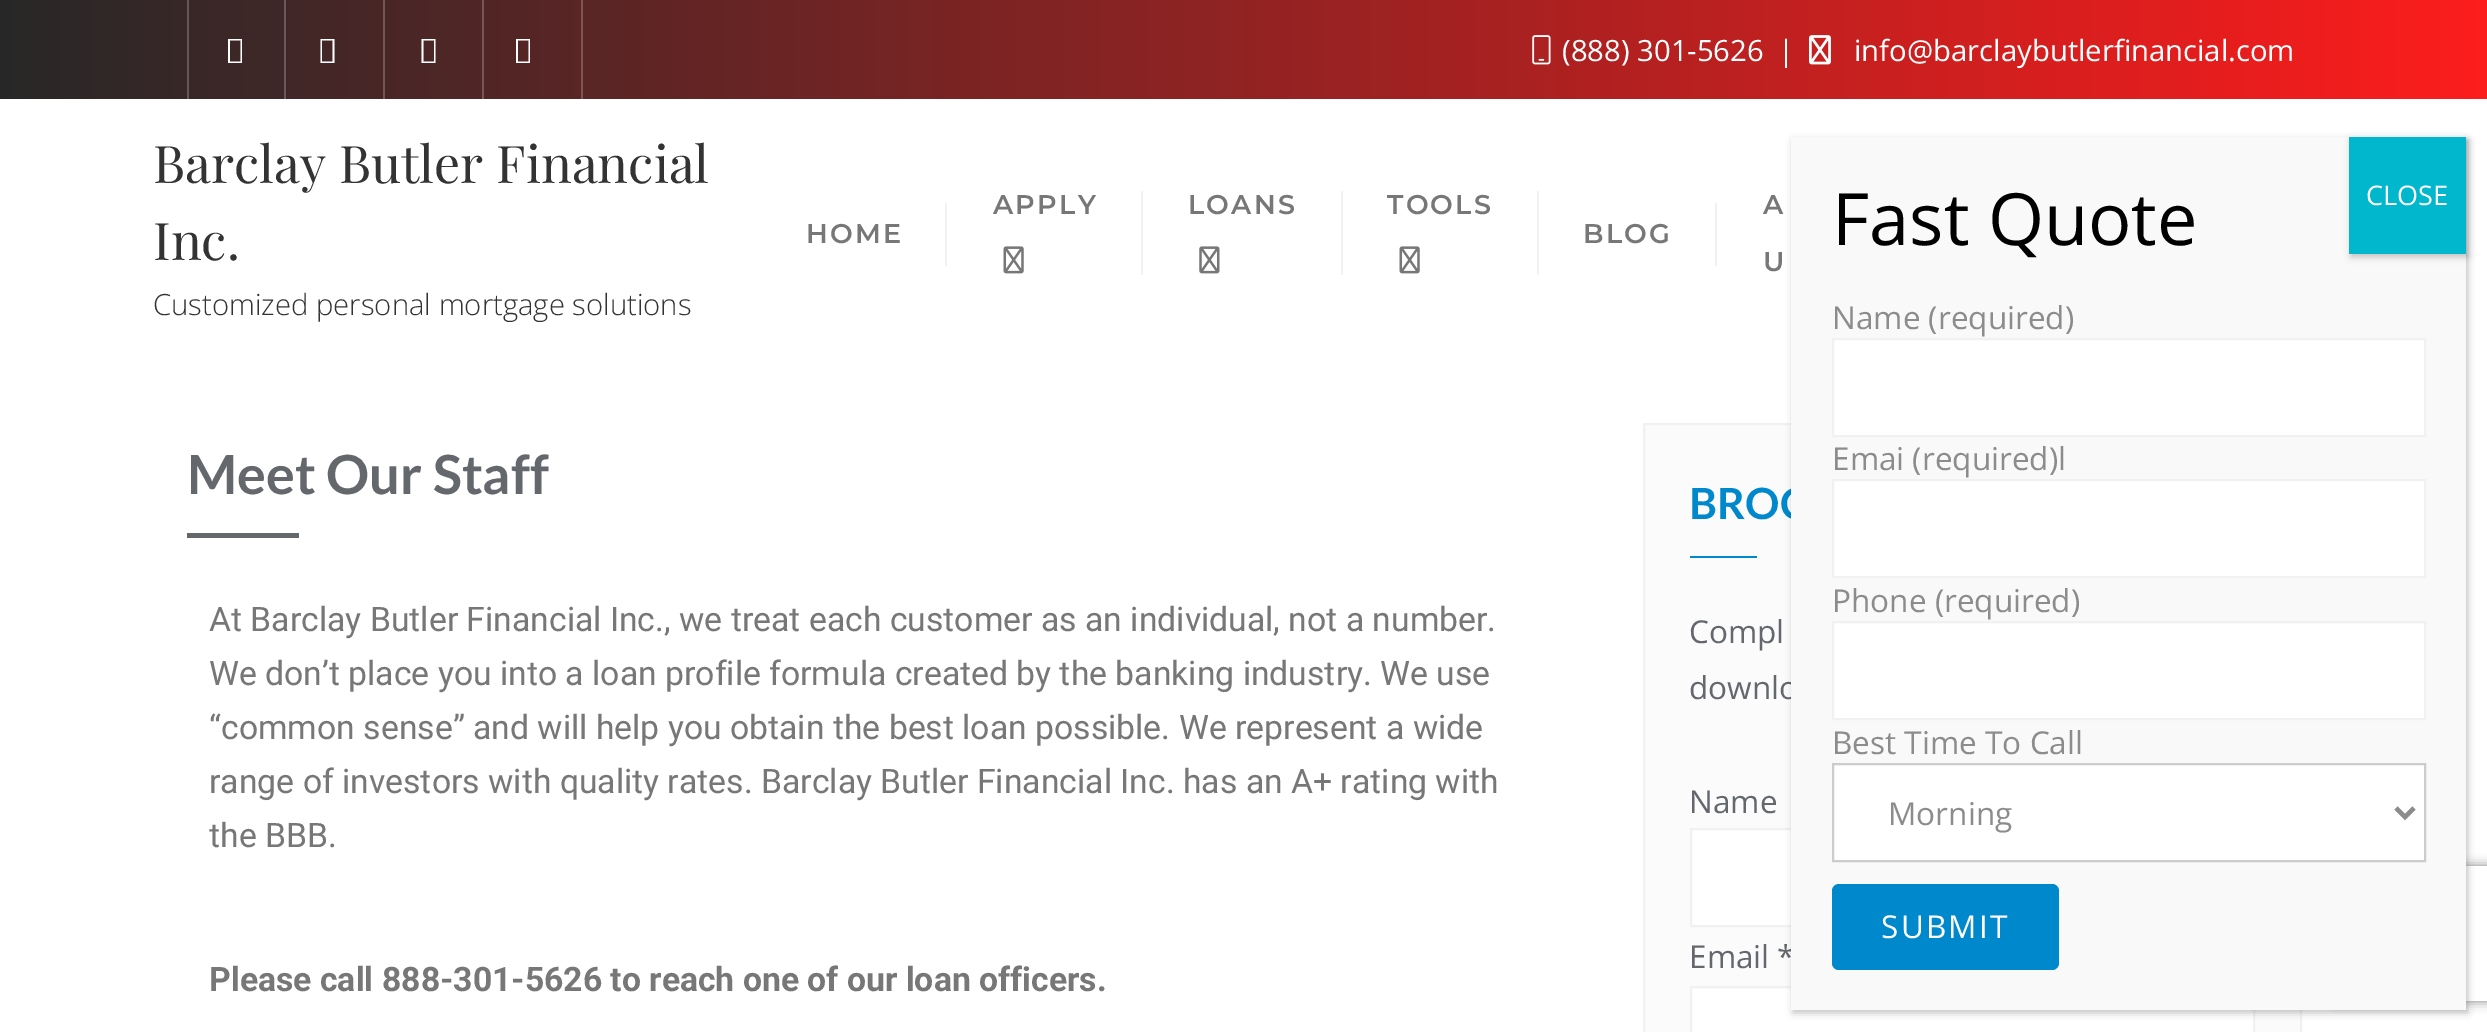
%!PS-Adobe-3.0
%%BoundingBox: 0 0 2487 1032
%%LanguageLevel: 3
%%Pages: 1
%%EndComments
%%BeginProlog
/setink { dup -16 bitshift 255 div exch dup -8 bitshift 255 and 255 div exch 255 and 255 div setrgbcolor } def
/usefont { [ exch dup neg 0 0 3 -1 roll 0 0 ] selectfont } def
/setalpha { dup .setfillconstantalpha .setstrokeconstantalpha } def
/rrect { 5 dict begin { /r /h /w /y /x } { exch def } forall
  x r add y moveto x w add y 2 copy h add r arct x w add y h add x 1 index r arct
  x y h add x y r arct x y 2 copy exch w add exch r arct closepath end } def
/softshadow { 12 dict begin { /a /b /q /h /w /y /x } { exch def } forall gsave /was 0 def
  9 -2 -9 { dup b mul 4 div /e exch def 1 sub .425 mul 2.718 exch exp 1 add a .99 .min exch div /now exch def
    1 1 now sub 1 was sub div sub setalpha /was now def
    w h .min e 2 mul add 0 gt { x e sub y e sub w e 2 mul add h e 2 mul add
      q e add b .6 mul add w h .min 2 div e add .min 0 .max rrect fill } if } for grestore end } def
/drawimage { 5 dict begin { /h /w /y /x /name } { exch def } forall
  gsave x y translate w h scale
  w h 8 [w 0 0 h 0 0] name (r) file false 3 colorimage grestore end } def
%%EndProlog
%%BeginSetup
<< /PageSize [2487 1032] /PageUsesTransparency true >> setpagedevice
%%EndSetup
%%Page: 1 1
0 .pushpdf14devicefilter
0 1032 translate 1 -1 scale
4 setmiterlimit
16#FFFFFF setink
0 0 2487 1032 rectfill
gsave 0 0 moveto 2487 0 lineto 2487 99 lineto 0 99 lineto closepath clip newpath
<< /ShadingType 2 /ColorSpace /DeviceRGB /Coords [0 50 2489 49] /Extend [true true] /Function << /FunctionType 2 /Domain [0 1] /C0 [0.157 0.157 0.157] /C1 [0.992 0.114 0.114] /N 1 >> >> shfill grestore
16#6A5757 setink
284 0 2 99 rectfill
16#645757 setink
187 0 2 99 rectfill
16#FFFFFF setink
228 63 moveto 228 39 lineto 242 39 lineto 242 63 lineto closepath 230 61.5 moveto 240.5 61.5 lineto 240.5 40.5 lineto 230 40.5 lineto closepath fill
16#715656 setink
383 0 2 99 rectfill
16#FFFFFF setink
320.5 63 moveto 320.5 39 lineto 334.5 39 lineto 334.5 63 lineto closepath 322 61.5 moveto 332.5 61.5 lineto 332.5 40.5 lineto 322 40.5 lineto closepath fill
16#775656 setink
482 0 2 99 rectfill
16#FFFFFF setink
421.5 63 moveto 421.5 39 lineto 435.5 39 lineto 435.5 63 lineto closepath 423.5 61.5 moveto 434 61.5 lineto 434 40.5 lineto 423.5 40.5 lineto closepath fill
16#7E5555 setink
581 0 2 99 rectfill
16#FFFFFF setink
516 63 moveto 516 39 lineto 530 39 lineto 530 63 lineto closepath 518 61.5 moveto 528.5 61.5 lineto 528.5 40.5 lineto 518 40.5 lineto closepath fill
(img1.raw) 1532 35 19 30 drawimage
/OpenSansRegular-Regular 29.25 usefont
1562 61 moveto (\(888\) 301-5626) show
1778 61 moveto (|) show
(img2.raw) 1809 35 22 30 drawimage
1854 61 moveto (info@barclaybutlerfinancial.com) show
/PlayfairDisplay-Regular 51.75 usefont
16#333333 setink
153 183 moveto (Barclay Butler Financial) show
153 260 moveto (Inc.) show
/OpenSans-Light 29.25 usefont
153 315 moveto (Customized personal mortgage solutions) show
/Montserrat-SemiBold 27 usefont
16#777777 setink
806 243 moveto 2.25 0 (HOME) ashow
16#F1F1F1 setink
945 203 2 63 rectfill
16#777777 setink
993 214 moveto 2.25 0 (APPLY) ashow
(img3.raw) 1003 246 21 28 drawimage
16#F1F1F1 setink
1141 191 2 84 rectfill
16#777777 setink
1188 214 moveto 2.25 0 (LOANS) ashow
(img4.raw) 1199 246 21 28 drawimage
16#F1F1F1 setink
1341 191 2 84 rectfill
16#777777 setink
1387 214 moveto 2.25 0 (TOOLS) ashow
(img3.raw) 1399 246 21 28 drawimage
16#F1F1F1 setink
1537 191 2 84 rectfill
16#777777 setink
1583 243 moveto 2.25 0 (BLOG) ashow
16#F1F1F1 setink
1715 203 2 63 rectfill
16#777777 setink
1763 214 moveto 2.25 0 (A) ashow
1763 271 moveto 2.25 0 (U) ashow
/Lato-Bold 54 usefont
16#64686D setink
187 494 moveto (Meet Our Staff) show
187 533 112 5 rectfill
/Roboto-Regular 33.75 usefont
16#777777 setink
[
    [(At Barclay Butler Financial Inc., we treat each customer as an individual, not a number.) 209 631]
    [(We don’t place you into a loan profile formula created by the banking industry. We use) 209 685]
    [(“common sense” and will help you obtain the best loan possible. We represent a wide) 209 739]
    [(range of investors with quality rates. Barclay Butler Financial Inc. has an A+ rating with) 209 793]
    [(the BBB.) 209 847]
] { aload pop moveto show } forall
/Roboto-Bold 33.75 usefont
209 991 moveto (Please call 888-301-5626 to reach one of our loan officers.) show
16#FBFBFB setink
1644 424 moveto 2301 424 lineto 2301 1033 lineto 1644 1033 lineto closepath gsave fill grestore
16#F1F1F1 setink
2 setlinewidth
stroke
/Lato-Bold 43 usefont
16#0088CC setink
1689 519 moveto (BROC) show
1690 556 67 2 rectfill
/OpenSansRegular-Regular 31.5 usefont
16#64686D setink
[
    [(Compl) 1689 643]
    [(downlo) 1689 699]
    [(Name) 1689 813]
] { aload pop moveto show } forall
16#FFFFFF setink
1692 830 99 95 rectfill
16#F1F1F1 setink
1691 829 563 97 rectstroke
16#64686D setink
1689 968 moveto (Email *) show
16#FFFFFF setink
1691 987 moveto 2254 987 lineto 2254 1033 lineto 1691 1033 lineto closepath gsave fill grestore
16#F1F1F1 setink
stroke
16#020202 setink
1793 140 675 873 0 3.5 0.23 softshadow
gsave
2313 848 moveto 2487 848 lineto 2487 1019 lineto 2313 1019 lineto closepath 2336 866 moveto 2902 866 lineto 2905 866 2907 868 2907 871 curveto 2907 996 lineto 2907 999 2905 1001 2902 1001 curveto 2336 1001 lineto 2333 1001 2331 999 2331 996 curveto 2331 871 lineto 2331 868 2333 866 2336 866 curveto closepath eoclip newpath
16#808080 setink
2331 866 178 135 5 5.5 1 softshadow
grestore
16#F9F9F9 setink
1791 137 675 873 rectfill
/OpenSansRegular-Regular 72 usefont
16#000000 setink
1832 245 moveto (Fast Quote) show
16#020202 setink
2351 140 117 117 0 3.5 0.23 softshadow
16#00B7CD setink
2349 137 117 117 rectfill
/OpenSansRegular-Regular 27 usefont
16#FFFFFF setink
2366 205 moveto (CLOSE) show
/OpenSansRegular-Regular 31.5 usefont
16#8C8C8C setink
1832 329 moveto (Name \(required\)) show
16#FFFFFF setink
1833 339 moveto 2425 339 lineto 2425 436 lineto 1833 436 lineto closepath gsave fill grestore
16#F1F1F1 setink
stroke
16#8C8C8C setink
1832 470 moveto (Emai \(required\)l) show
16#FFFFFF setink
1833 480 moveto 2425 480 lineto 2425 577 lineto 1833 577 lineto closepath gsave fill grestore
16#F1F1F1 setink
stroke
16#8C8C8C setink
1832 612 moveto (Phone \(required\)) show
16#FFFFFF setink
1833 622 moveto 2425 622 lineto 2425 719 lineto 1833 719 lineto closepath gsave fill grestore
16#F1F1F1 setink
stroke
16#8C8C8C setink
1832 754 moveto (Best Time To Call) show
16#FFFFFF setink
1833 764 moveto 2425 764 lineto 2425 861 lineto 1833 861 lineto closepath gsave fill grestore
16#CCCCCC setink
stroke
16#8C8C8C setink
4.5 setlinewidth
2396 808 moveto 2405 817 lineto 2414 808 lineto stroke
1888 825 moveto (Morning) show
16#0088CC setink
1832 884 227 86 7 rrect fill
16#FFFFFF setink
1881 938 moveto 2.25 0 (SUBMIT) ashow
.poppdf14devicefilter showpage
%%EOF
